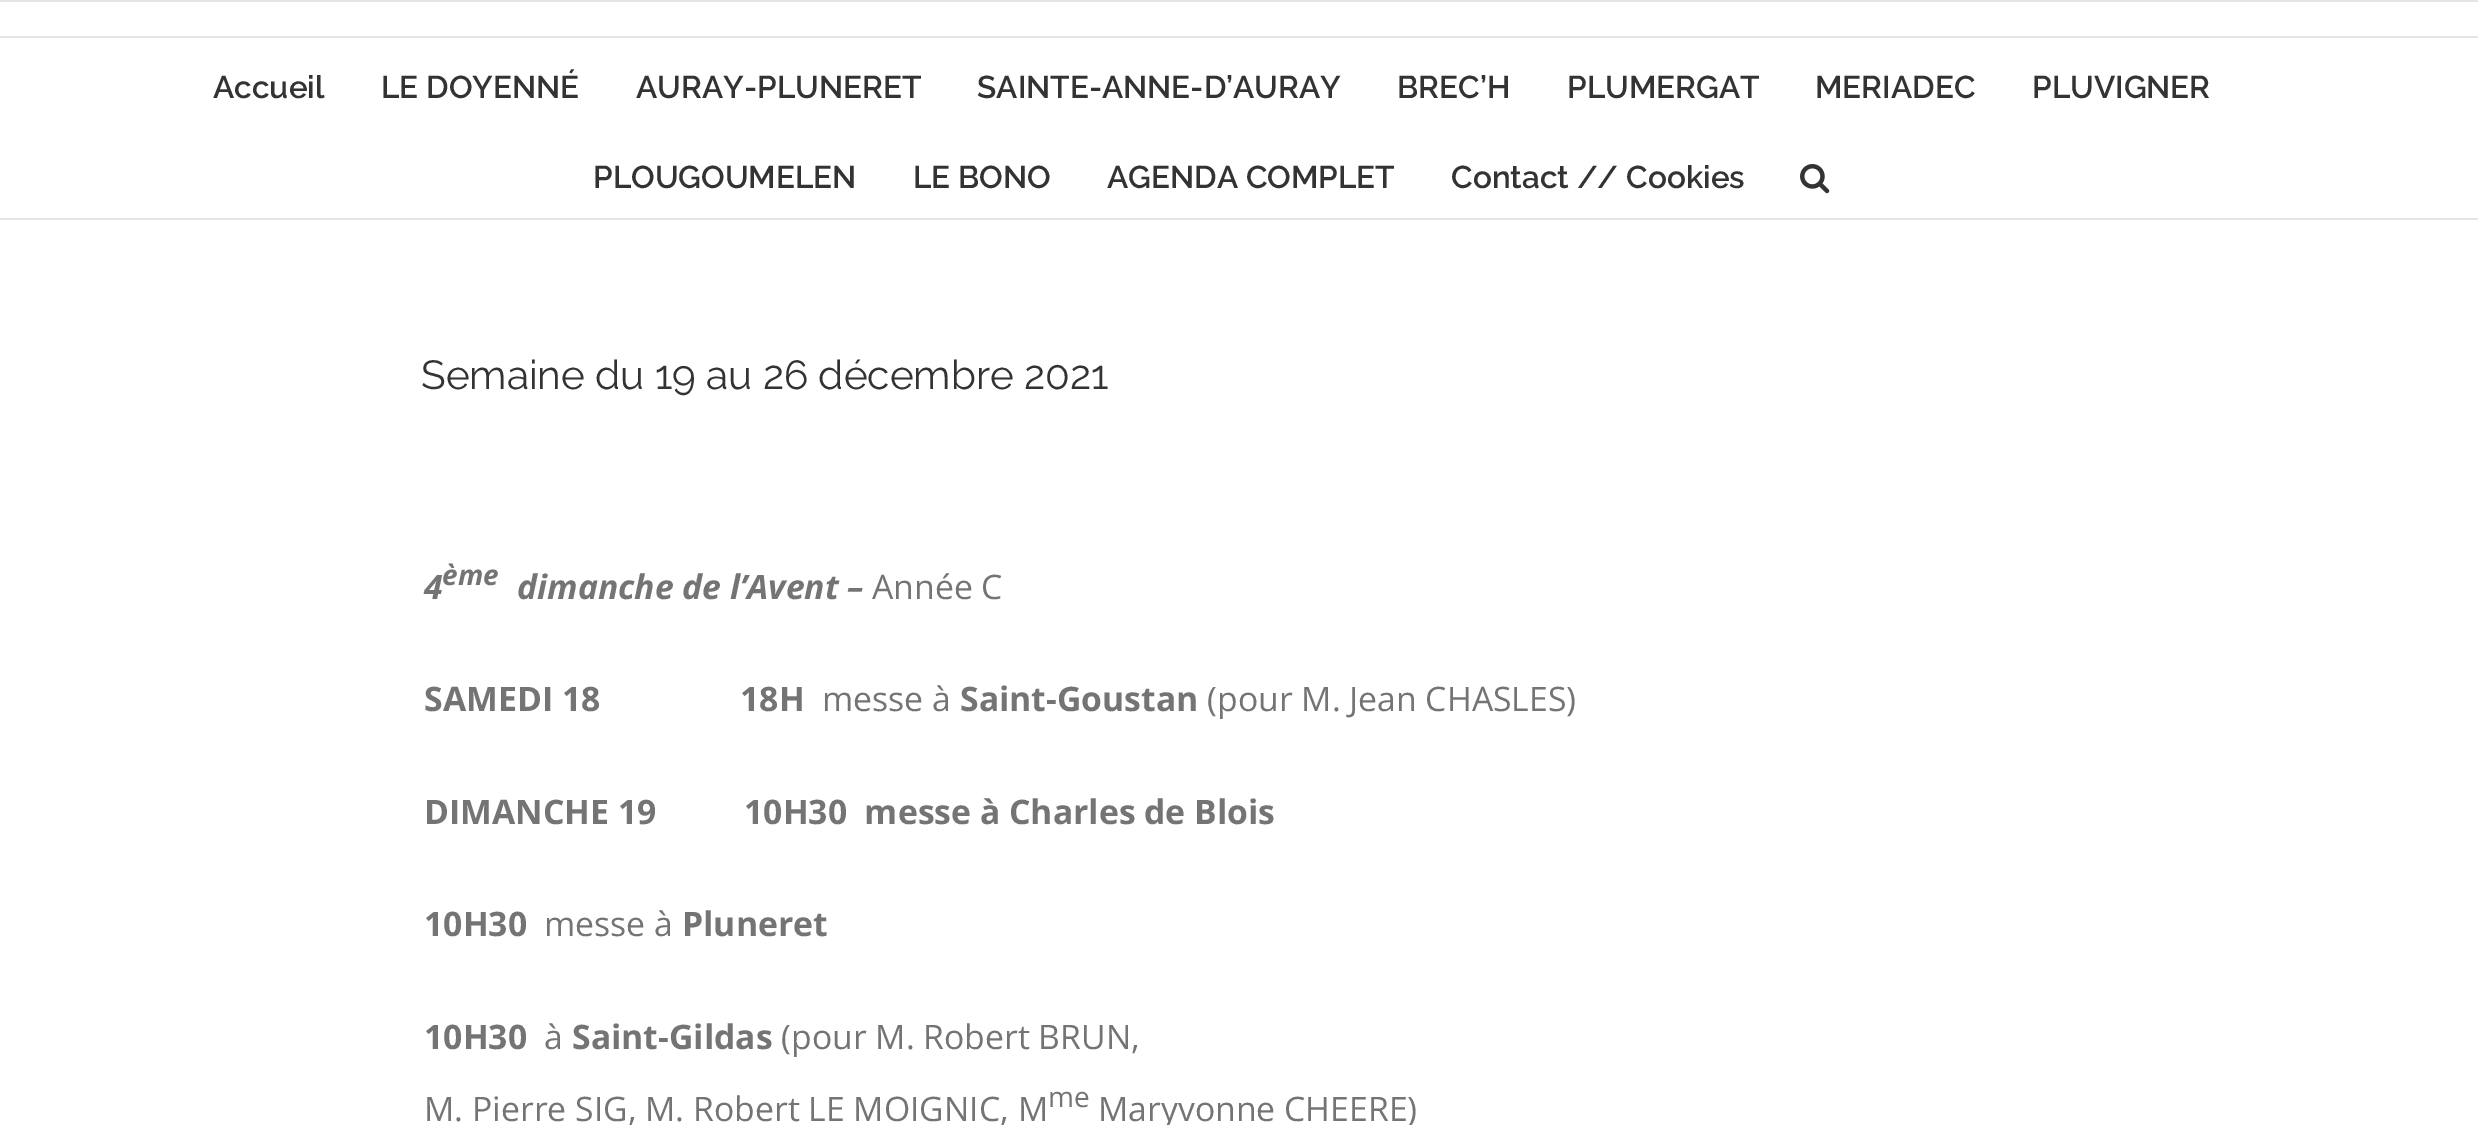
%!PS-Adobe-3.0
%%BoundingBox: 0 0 2478 1125
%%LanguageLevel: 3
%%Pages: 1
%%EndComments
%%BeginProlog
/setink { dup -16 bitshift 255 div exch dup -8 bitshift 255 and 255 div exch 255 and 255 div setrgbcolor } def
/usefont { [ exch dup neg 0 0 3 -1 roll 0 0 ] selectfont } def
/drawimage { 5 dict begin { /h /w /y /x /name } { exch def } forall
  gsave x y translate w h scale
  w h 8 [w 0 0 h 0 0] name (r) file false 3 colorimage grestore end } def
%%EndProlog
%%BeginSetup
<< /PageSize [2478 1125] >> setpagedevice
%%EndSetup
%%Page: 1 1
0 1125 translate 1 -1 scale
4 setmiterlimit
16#FFFFFF setink
0 0 2478 1125 rectfill
[
    [0 0 2478 2 16#E5E5E5]
    [0 36 2478 2 16#E5E5E5]
    [0 218 2478 2 16#E5E5E5]
] { aload pop setink rectfill } forall
/Raleway-SemiBold 31.5 usefont
16#333333 setink
[
    [(Accueil) 213 98]
    [(LE DOYENNÉ) 381 98]
    [(AURAY-PLUNERET) 636 98]
    [(SAINTE-ANNE-D’AURAY) 977 98]
    [(BREC’H) 1397 98]
    [(PLUMERGAT) 1567 98]
    [(MERIADEC) 1815 98]
    [(PLUVIGNER) 2032 98]
    [(PLOUGOUMELEN) 593 188]
    [(LE BONO) 913 188]
    [(AGENDA COMPLET) 1107 188]
    [(Contact // Cookies) 1451 188]
] { aload pop moveto show } forall
(img1.raw) 1800 164 30 30 drawimage
/Raleway-Regular 40.5 usefont
421 389 moveto (Semaine du 19 au 26 décembre 2021) show
/OpenSans-BoldItalic 33.75 usefont
16#747474 setink
424 599 moveto (4) show
/OpenSans-BoldItalic 28 usefont
442 585 moveto (ème) show
/OpenSans-BoldItalic 33.75 usefont
517 599 moveto (dimanche de l’Avent –) show
/OpenSans-Regular 33.75 usefont
872 599 moveto (Année C) show
/OpenSans-Bold 33.75 usefont
424 711 moveto (SAMEDI 18) show
740 711 moveto (18H) show
/OpenSans-Regular 33.75 usefont
822 711 moveto (messe à) show
/OpenSans-Bold 33.75 usefont
960 711 moveto (Saint-Goustan) show
/OpenSans-Regular 33.75 usefont
1207 711 moveto (\(pour M. Jean CHASLES\)) show
/OpenSans-Bold 33.75 usefont
424 824 moveto (DIMANCHE 19          10H30  messe à Charles de Blois) show
424 936 moveto (10H30) show
/OpenSans-Regular 33.75 usefont
544 936 moveto (messe à) show
/OpenSans-Bold 33.75 usefont
682 936 moveto (Pluneret) show
424 1049 moveto (10H30) show
/OpenSans-Regular 33.75 usefont
544 1049 moveto (à) show
/OpenSans-Bold 33.75 usefont
572 1049 moveto (Saint-Gildas) show
/OpenSans-Regular 33.75 usefont
781 1049 moveto (\(pour M. Robert BRUN,) show
424 1121 moveto (M. Pierre SIG, M. Robert LE MOIGNIC, M) show
/OpenSans-Regular 28 usefont
1048 1107 moveto (me) show
/OpenSans-Regular 33.75 usefont
1098 1121 moveto (Maryvonne CHEERE\)) show
showpage
%%EOF
